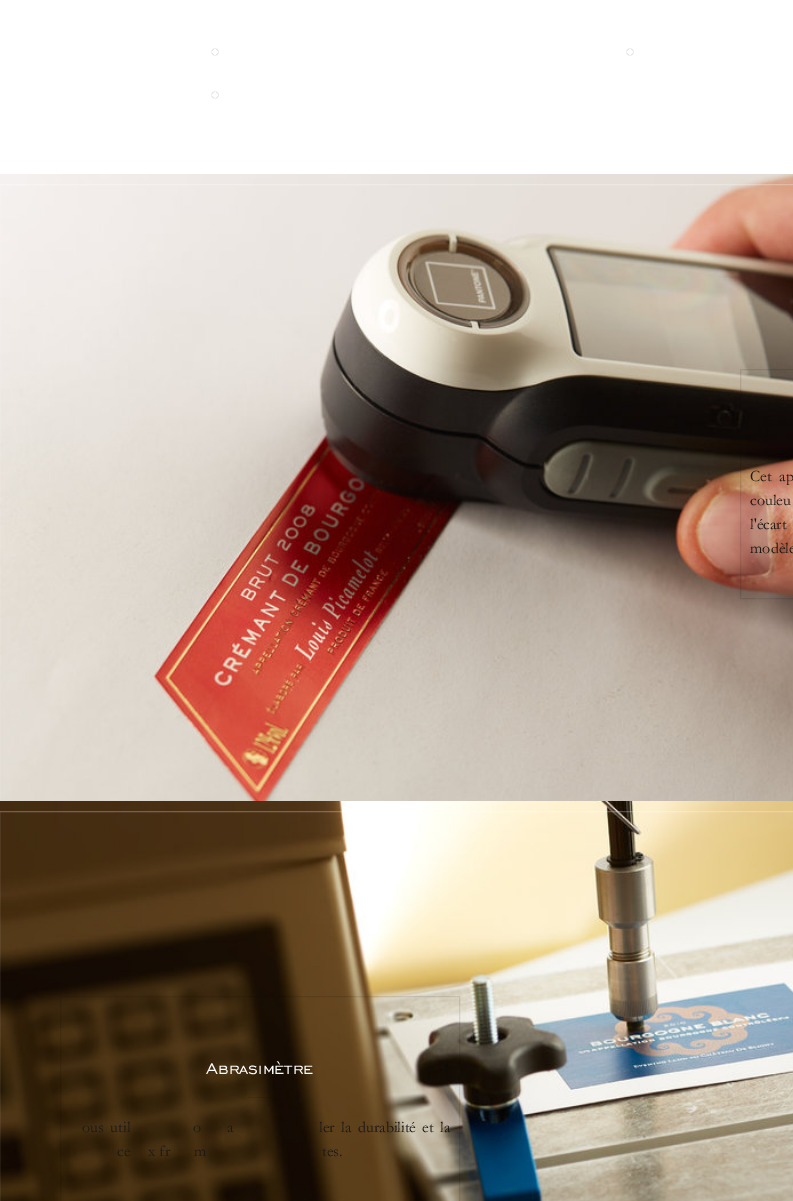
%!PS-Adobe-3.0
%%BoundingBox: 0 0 793 1201
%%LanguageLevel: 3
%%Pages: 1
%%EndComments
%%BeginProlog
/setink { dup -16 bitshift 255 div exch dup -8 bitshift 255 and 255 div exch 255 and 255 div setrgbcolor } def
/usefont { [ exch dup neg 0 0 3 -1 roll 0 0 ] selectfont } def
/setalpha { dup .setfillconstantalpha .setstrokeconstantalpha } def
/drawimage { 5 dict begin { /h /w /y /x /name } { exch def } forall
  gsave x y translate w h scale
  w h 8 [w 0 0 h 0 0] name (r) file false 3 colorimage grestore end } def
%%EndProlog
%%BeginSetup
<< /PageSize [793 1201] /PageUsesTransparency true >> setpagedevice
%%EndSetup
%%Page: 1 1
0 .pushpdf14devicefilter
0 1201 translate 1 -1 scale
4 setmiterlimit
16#FFFFFF setink
0 0 793 1201 rectfill
(img1.raw) 211 48 8 8 drawimage
(img1.raw) 626 48 8 8 drawimage
(img1.raw) 211 91 8 8 drawimage
(img2.raw) 0 174 793 627 drawimage
0.25 setalpha
-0.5 184.5 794 626 rectstroke
0.1 setalpha
16#000000 setink
740.5 369.5 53 229 rectstroke
/Garamond-Regular 16 usefont
1 setalpha
16#1A1917 setink
750 481 moveto 4 0 32 (Cet ap) widthshow
750 505 moveto 3 0 32 (couleu) widthshow
750 529 moveto 5 0 32 (l'écart) widthshow
750 553 moveto (modèle) show
(img3.raw) 0 801 793 400 drawimage
0.25 setalpha
16#FFFFFF setink
-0.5 811.5 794 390 rectstroke
0.1 setalpha
16#000000 setink
60.5 996.5 399 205 rectstroke
/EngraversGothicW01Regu-Regular 20 usefont
1 setalpha
16#FFFFFF setink
206 1074 moveto (Abrasimètre) show
0.1 setalpha
16#000000 setink
248 1097 25 1 rectfill
/Garamond-Regular 16 usefont
1 setalpha
16#1A1917 setink
82 1132 moveto 2.5 0 32 (ous util) widthshow
193 1132 moveto 2.5 0 32 (o) widthshow
227 1132 moveto 2.5 0 32 (a) widthshow
319 1132 moveto 2.5 0 32 (ler la durabilité et la) widthshow
[
    [(ce) 117 1156]
    [(x fr) 148 1156]
    [(m) 194 1156]
    [(tes.) 322 1156]
] { aload pop moveto show } forall
.poppdf14devicefilter showpage
%%EOF
